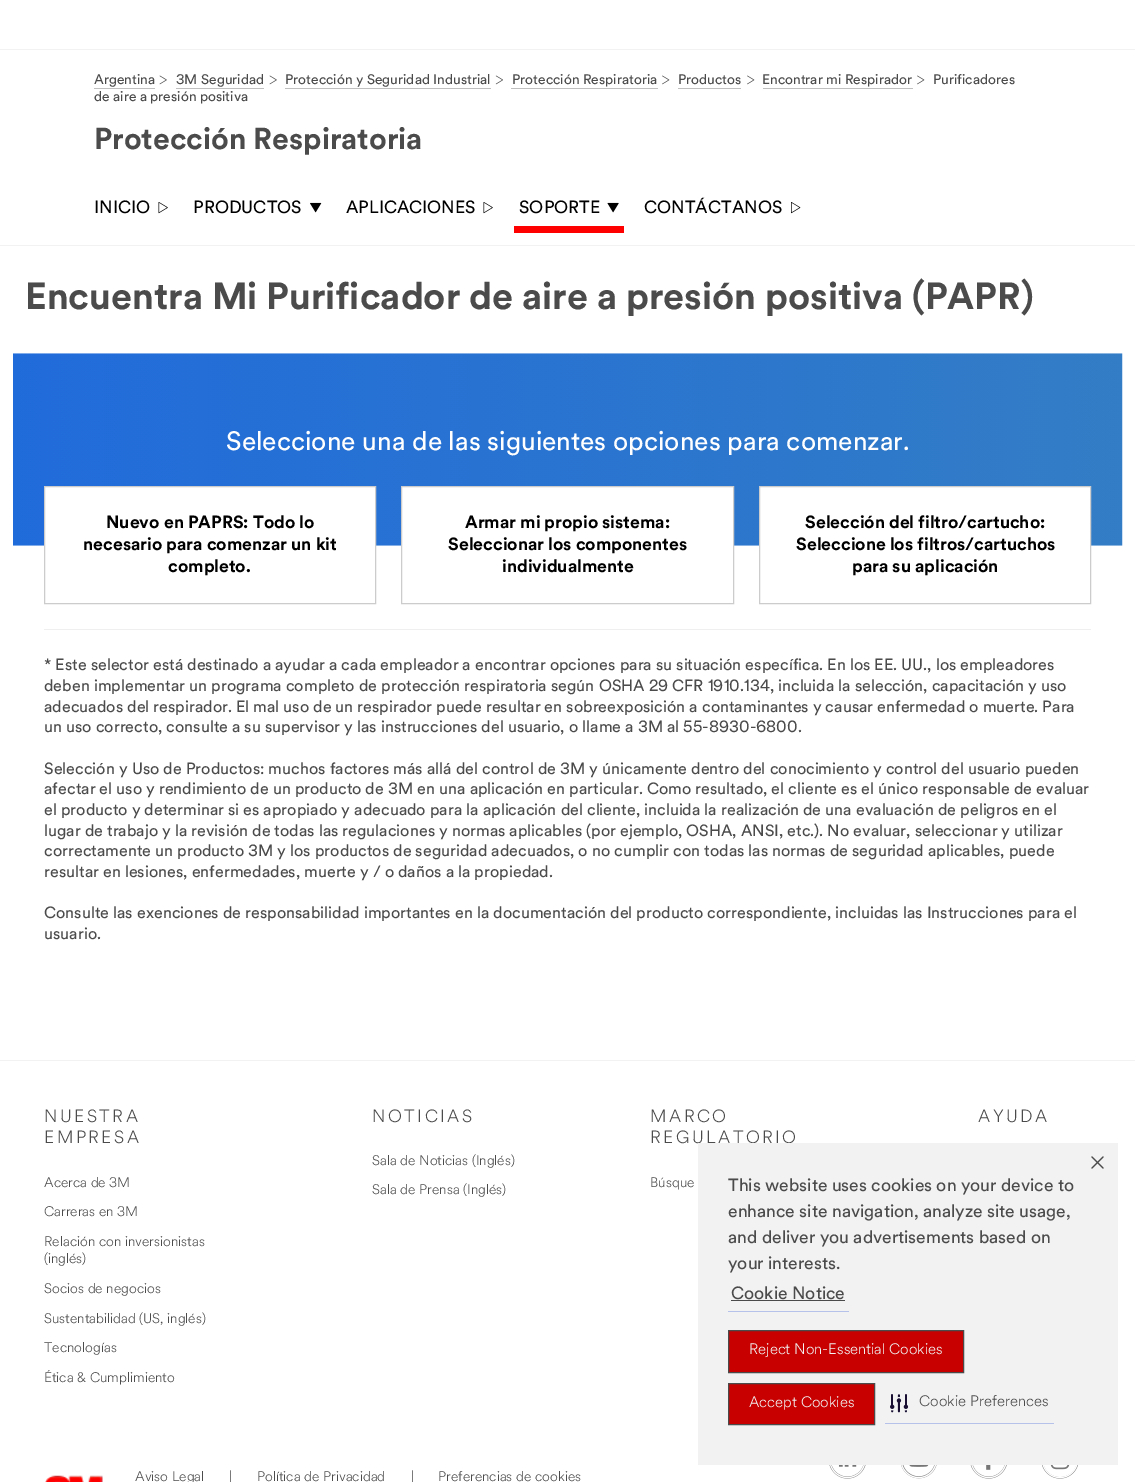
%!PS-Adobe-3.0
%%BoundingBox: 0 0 1135 1482
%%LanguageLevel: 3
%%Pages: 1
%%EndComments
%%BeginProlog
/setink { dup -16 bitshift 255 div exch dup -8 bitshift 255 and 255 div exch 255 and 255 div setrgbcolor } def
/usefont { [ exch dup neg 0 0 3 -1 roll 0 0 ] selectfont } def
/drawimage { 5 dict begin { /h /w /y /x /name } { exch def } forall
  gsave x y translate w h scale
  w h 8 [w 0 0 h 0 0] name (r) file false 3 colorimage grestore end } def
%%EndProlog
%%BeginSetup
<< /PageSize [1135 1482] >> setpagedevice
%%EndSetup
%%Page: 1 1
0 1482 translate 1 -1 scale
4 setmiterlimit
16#FFFFFF setink
0 0 1135 1482 rectfill
16#F2F2F2 setink
0 49 1135 1 rectfill
0 245 1135 1 rectfill
/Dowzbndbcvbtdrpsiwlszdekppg-Regular 13.75 usefont
16#4B4B4B setink
94 84 moveto (Argentina) show
16#BFBFBF setink
94 88 61 1 rectfill
(img1.raw) 159 75 8 10 drawimage
16#4B4B4B setink
176 84 moveto (3M Seguridad) show
16#BFBFBF setink
176 88 88 1 rectfill
(img1.raw) 269 75 8 10 drawimage
16#4B4B4B setink
285 84 moveto (Protección y Seguridad Industrial) show
16#BFBFBF setink
285 88 206 1 rectfill
(img2.raw) 495 75 8 10 drawimage
16#4B4B4B setink
512 84 moveto (Protección Respiratoria) show
16#BFBFBF setink
511 88 147 1 rectfill
(img3.raw) 662 75 8 10 drawimage
16#4B4B4B setink
678 84 moveto (Productos) show
16#BFBFBF setink
678 88 63 1 rectfill
(img3.raw) 747 75 8 10 drawimage
16#4B4B4B setink
762 84 moveto (Encontrar mi Respirador) show
16#BFBFBF setink
763 88 150 1 rectfill
(img3.raw) 917 75 8 10 drawimage
16#4B4B4B setink
933 84 moveto (Purificadores) show
94 101 moveto (de aire a presión positiva) show
/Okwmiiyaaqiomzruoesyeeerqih-Bold 30 usefont
94 149 moveto (Protección Respiratoria) show
/Dowzbndbcvbtdrpsiwlszdekppg-Regular 17.5 usefont
16#000000 setink
94 213 moveto (INICIO) show
(img4.raw) 158 202 10 12 drawimage
193 213 moveto (PRODUCTOS) show
(img5.raw) 310 202 12 11 drawimage
346 213 moveto (APLICACIONES) show
(img4.raw) 483 202 10 12 drawimage
16#FF0000 setink
514 226 110 7 rectfill
16#000000 setink
519 213 moveto (SOPORTE) show
(img6.raw) 607 202 12 11 drawimage
644 213 moveto (CONTÁCTANOS) show
(img7.raw) 791 202 10 12 drawimage
/Okwmiiyaaqiomzruoesyeeerqih-Bold 37.5 usefont
16#4B4B4B setink
25 309 moveto (Encuentra Mi Purificador de aire a presión positiva \(PAPR\)) show
(img8.raw) 13 353 1110 193 drawimage
/Dowzbndbcvbtdrpsiwlszdekppg-Regular 26.25 usefont
16#FFFFFF setink
226 450 moveto (Seleccione una de las siguientes opciones para comenzar.) show
45 487 330 59 rectfill
16#CCCCCC setink
44.5 486.5 331 117 rectstroke
/Okwmiiyaaqiomzruoesyeeerqih-Bold 17.5 usefont
16#000000 setink
[
    [(Nuevo en PAPRS: Todo lo) 106 528]
    [(necesario para comenzar un kit) 83 550]
    [(completo.) 168 572]
] { aload pop moveto show } forall
16#FFFFFF setink
402 487 331 59 rectfill
16#CCCCCC setink
401.5 486.5 332 117 rectstroke
16#000000 setink
[
    [(Armar mi propio sistema:) 465 528]
    [(Seleccionar los componentes) 448 550]
    [(individualmente) 502 572]
] { aload pop moveto show } forall
16#FFFFFF setink
760 487 330 59 rectfill
16#CCCCCC setink
759.5 486.5 331 117 rectstroke
16#000000 setink
[
    [(Selección del filtro/cartucho:) 805 528]
    [(Seleccione los filtros/cartuchos) 796 550]
    [(para su aplicación) 852 572]
] { aload pop moveto show } forall
16#EFEFEF setink
44 629 1047 1 rectfill
/Dowzbndbcvbtdrpsiwlszdekppg-Regular 16.1 usefont
16#4B4B4B setink
[
    [(* Este selector está destinado a ayudar a cada empleador a encontrar opciones para su situación específica. En los EE. UU., los empleadores) 44 670]
    [(deben implementar un programa completo de protección respiratoria según OSHA 29 CFR 1910.134, incluida la selección, capacitación y uso) 44 691]
    [(adecuados del respirador. El mal uso de un respirador puede resultar en sobreexposición a contaminantes y causar enfermedad o muerte. Para) 44 712]
    [(un uso correcto, consulte a su supervisor y las instrucciones del usuario, o llame a 3M al 55-8930-6800.) 44 732]
    [(Selección y Uso de Productos: muchos factores más allá del control de 3M y únicamente dentro del conocimiento y control del usuario pueden) 44 774]
    [(afectar el uso y rendimiento de un producto de 3M en una aplicación en particular. Como resultado, el cliente es el único responsable de evaluar) 44 794]
    [(el producto y determinar si es apropiado y adecuado para la aplicación del cliente, incluida la realización de una evaluación de peligros en el) 44 815]
    [(lugar de trabajo y la revisión de todas las regulaciones y normas aplicables \(por ejemplo, OSHA, ANSI, etc.\). No evaluar, seleccionar y utilizar) 44 836]
    [(correctamente un producto 3M y los productos de seguridad adecuados, o no cumplir con todas las normas de seguridad aplicables, puede) 44 856]
    [(resultar en lesiones, enfermedades, muerte y / o daños a la propiedad.) 44 877]
    [(Consulte las exenciones de responsabilidad importantes en la documentación del producto correspondiente, incluidas las Instrucciones para el) 44 918]
    [(usuario.) 44 939]
] { aload pop moveto show } forall
16#F2F2F2 setink
0 1060 1135 1 rectfill
/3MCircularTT-Light 17.5 usefont
16#4B4B4B setink
44 1122 moveto 2.5 0 (NUESTRA) ashow
44 1143 moveto 2.5 0 (EMPRESA) ashow
/3MCircularTT-Light 13.75 usefont
[
    [(Acerca de 3M) 44 1187]
    [(Carreras en 3M) 44 1216]
    [(Relación con inversionistas) 44 1246]
    [(\(inglés\)) 44 1263]
    [(Socios de negocios) 44 1293]
    [(Sustentabilidad \(US, inglés\)) 44 1323]
    [(Tecnologías) 44 1352]
    [(Ética & Cumplimiento) 44 1382]
] { aload pop moveto show } forall
/3MCircularTT-Light 17.5 usefont
372 1122 moveto 2.5 0 (NOTICIAS) ashow
/3MCircularTT-Light 13.75 usefont
372 1165 moveto (Sala de Noticias \(Inglés\)) show
372 1194 moveto (Sala de Prensa \(Inglés\)) show
/3MCircularTT-Light 17.5 usefont
650 1122 moveto 2.5 0 (MARCO) ashow
650 1143 moveto 2.5 0 (REGULATORIO) ashow
/3MCircularTT-Light 13.75 usefont
650 1187 moveto (Búsque) show
/3MCircularTT-Light 17.5 usefont
978 1122 moveto 2.5 0 (AYUDA) ashow
(img9.raw) 45 1475 58 7 drawimage
/3MCircularTT-Light 13.75 usefont
[
    [(Aviso Legal) 135 1481]
    [(|) 229 1481]
    [(Política de Privacidad) 257 1481]
    [(|) 411 1481]
    [(Preferencias de cookies) 438 1481]
] { aload pop moveto show } forall
(img10.raw) 829 1465 37 14 drawimage
(img11.raw) 830 1465 35 14 drawimage
(img12.raw) 901 1465 36 14 drawimage
(img13.raw) 901 1465 36 14 drawimage
(img14.raw) 970 1465 37 14 drawimage
(img15.raw) 971 1465 36 14 drawimage
(img16.raw) 1042 1465 36 14 drawimage
(img17.raw) 1042 1465 36 14 drawimage
16#F2F2F2 setink
698 1143 420 322 rectfill
/Dowzbndbcvbtdrpsiwlszdekppg-Regular 17.5 usefont
16#4B4B4B setink
[
    [(This website uses cookies on your device to) 728 1191]
    [(enhance site navigation, analyze site usage,) 728 1217]
    [(and deliver you advertisements based on) 728 1243]
    [(your interests.) 728 1269]
] { aload pop moveto show } forall
16#B6C2E9 setink
728 1311 121 1 rectfill
16#4B4B4B setink
731 1299 moveto (Cookie Notice) show
731 1300 114 1 rectfill
(img18.raw) 1091 1156 13 13 drawimage
16#C80000 setink
728.5 1330.5 moveto 963.5 1330.5 lineto 963.5 1372.5 lineto 728.5 1372.5 lineto closepath gsave fill grestore
16#4B4B4B setink
stroke
/3MCircularTT-Light 15 usefont
16#F2F2F2 setink
749 1354 moveto (Reject Non-Essential Cookies) show
16#C80000 setink
728.5 1383.5 moveto 874.5 1383.5 lineto 874.5 1424.5 lineto 728.5 1424.5 lineto closepath gsave fill grestore
16#4B4B4B setink
stroke
16#F2F2F2 setink
749 1407 moveto (Accept Cookies) show
16#B6C2E9 setink
885 1423 169 1 rectfill
(img19.raw) 890 1394 19 19 drawimage
16#4B4B4B setink
919 1406 moveto (Cookie Preferences) show
showpage
%%EOF
